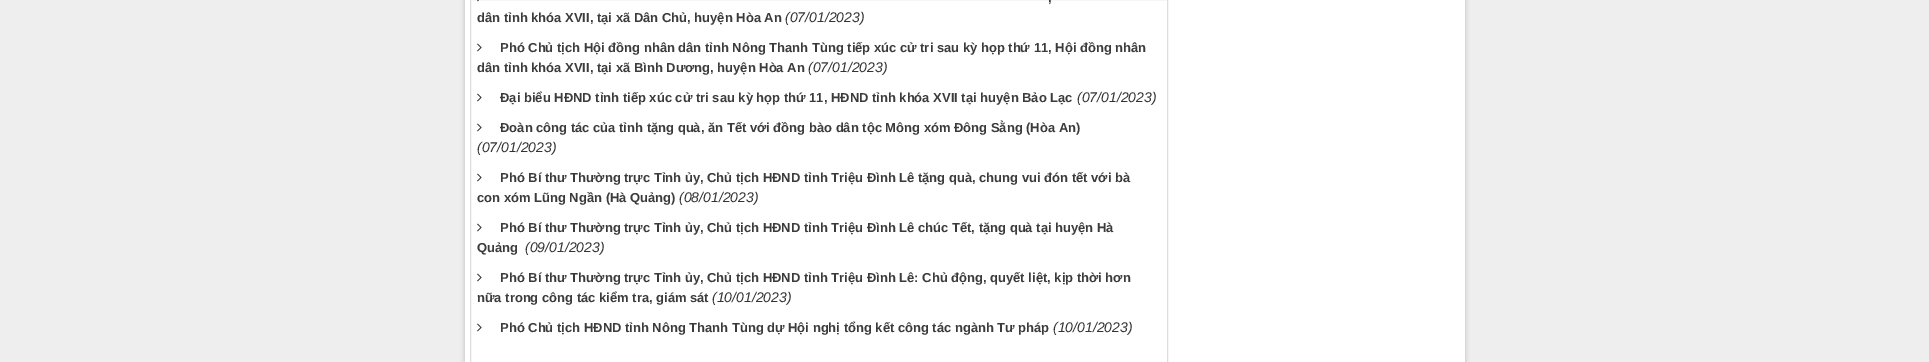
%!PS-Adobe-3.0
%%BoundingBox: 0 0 1929 362
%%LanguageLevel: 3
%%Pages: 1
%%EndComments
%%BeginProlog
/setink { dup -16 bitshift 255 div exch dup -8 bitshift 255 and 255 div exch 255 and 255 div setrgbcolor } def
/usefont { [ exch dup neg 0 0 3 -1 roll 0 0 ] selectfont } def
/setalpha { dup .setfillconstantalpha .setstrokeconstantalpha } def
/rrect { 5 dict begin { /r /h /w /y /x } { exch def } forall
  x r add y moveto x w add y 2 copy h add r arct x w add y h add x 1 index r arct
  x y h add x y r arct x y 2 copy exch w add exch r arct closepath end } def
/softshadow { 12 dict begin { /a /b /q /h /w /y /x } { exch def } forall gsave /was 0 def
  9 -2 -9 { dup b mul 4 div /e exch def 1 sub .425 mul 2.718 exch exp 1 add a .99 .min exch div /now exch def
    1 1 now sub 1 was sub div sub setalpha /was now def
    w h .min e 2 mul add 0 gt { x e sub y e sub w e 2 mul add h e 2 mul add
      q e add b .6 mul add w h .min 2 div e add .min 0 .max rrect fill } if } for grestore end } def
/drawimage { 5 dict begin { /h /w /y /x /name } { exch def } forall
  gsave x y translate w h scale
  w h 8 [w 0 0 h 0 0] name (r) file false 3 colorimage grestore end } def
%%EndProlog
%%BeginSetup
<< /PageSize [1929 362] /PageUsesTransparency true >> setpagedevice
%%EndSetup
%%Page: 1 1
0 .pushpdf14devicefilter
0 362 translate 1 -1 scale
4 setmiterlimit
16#EEEEEE setink
0 0 1929 362 rectfill
16#000000 setink
464 -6 1002 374 0 2 0.15 softshadow
16#FFFFFF setink
465 0 1000 362 rectfill
16#DDDDDD setink
470.5 -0.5 697 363 rectstroke
(img1.raw) 477 0 3 2 drawimage
/LiberationSans-Bold 13 usefont
16#3B3B3B setink
1048 2 moveto (,) show
477 22 moveto (dân tỉnh khóa XVII, tại xã Dân Chủ, huyện Hòa An) show
/LiberationSans-Italic 14 usefont
16#333333 setink
785 22 moveto (\(07/01/2023\)) show
(img2.raw) 477 43 5 9 drawimage
/LiberationSans-Bold 13 usefont
16#3B3B3B setink
500 52 moveto (Phó Chủ tịch Hội đồng nhân dân tỉnh Nông Thanh Tùng tiếp xúc cử tri sau kỳ họp thứ 11, Hội đồng nhân) show
477 72 moveto (dân tỉnh khóa XVII, tại xã Bình Dương, huyện Hòa An) show
/LiberationSans-Italic 14 usefont
16#333333 setink
808 72 moveto (\(07/01/2023\)) show
(img2.raw) 477 93 5 9 drawimage
/LiberationSans-Bold 13 usefont
16#3B3B3B setink
500 102 moveto (Đại biểu HĐND tỉnh tiếp xúc cử tri sau kỳ họp thứ 11, HĐND tỉnh khóa XVII tại huyện Bảo Lạc) show
/LiberationSans-Italic 14 usefont
16#333333 setink
1077 102 moveto (\(07/01/2023\)) show
(img2.raw) 477 123 5 9 drawimage
/LiberationSans-Bold 13 usefont
16#3B3B3B setink
500 132 moveto (Đoàn công tác của tỉnh tặng quà, ăn Tết với đồng bào dân tộc Mông xóm Đông Sằng \(Hòa An\)) show
/LiberationSans-Italic 14 usefont
16#333333 setink
477 152 moveto (\(07/01/2023\)) show
(img2.raw) 477 173 5 9 drawimage
/LiberationSans-Bold 13 usefont
16#3B3B3B setink
500 182 moveto (Phó Bí thư Thường trực Tỉnh ủy, Chủ tịch HĐND tỉnh Triệu Đình Lê tặng quà, chung vui đón tết với bà) show
477 202 moveto (con xóm Lũng Ngần \(Hà Quảng\)) show
/LiberationSans-Italic 14 usefont
16#333333 setink
679 202 moveto (\(08/01/2023\)) show
(img2.raw) 477 223 5 9 drawimage
/LiberationSans-Bold 13 usefont
16#3B3B3B setink
500 232 moveto (Phó Bí thư Thường trực Tỉnh ủy, Chủ tịch HĐND tỉnh Triệu Đình Lê chúc Tết, tặng quà tại huyện Hà) show
477 252 moveto (Quảng) show
/LiberationSans-Italic 14 usefont
16#333333 setink
525 252 moveto (\(09/01/2023\)) show
(img2.raw) 477 273 5 9 drawimage
/LiberationSans-Bold 13 usefont
16#3B3B3B setink
500 282 moveto (Phó Bí thư Thường trực Tỉnh ủy, Chủ tịch HĐND tỉnh Triệu Đình Lê: Chủ động, quyết liệt, kịp thời hơn) show
477 302 moveto (nữa trong công tác kiểm tra, giám sát) show
/LiberationSans-Italic 14 usefont
16#333333 setink
712 302 moveto (\(10/01/2023\)) show
(img2.raw) 477 323 5 9 drawimage
/LiberationSans-Bold 13 usefont
16#3B3B3B setink
500 332 moveto (Phó Chủ tịch HĐND tỉnh Nông Thanh Tùng dự Hội nghị tổng kết công tác ngành Tư pháp) show
/LiberationSans-Italic 14 usefont
16#333333 setink
1053 332 moveto (\(10/01/2023\)) show
.poppdf14devicefilter showpage
%%EOF
